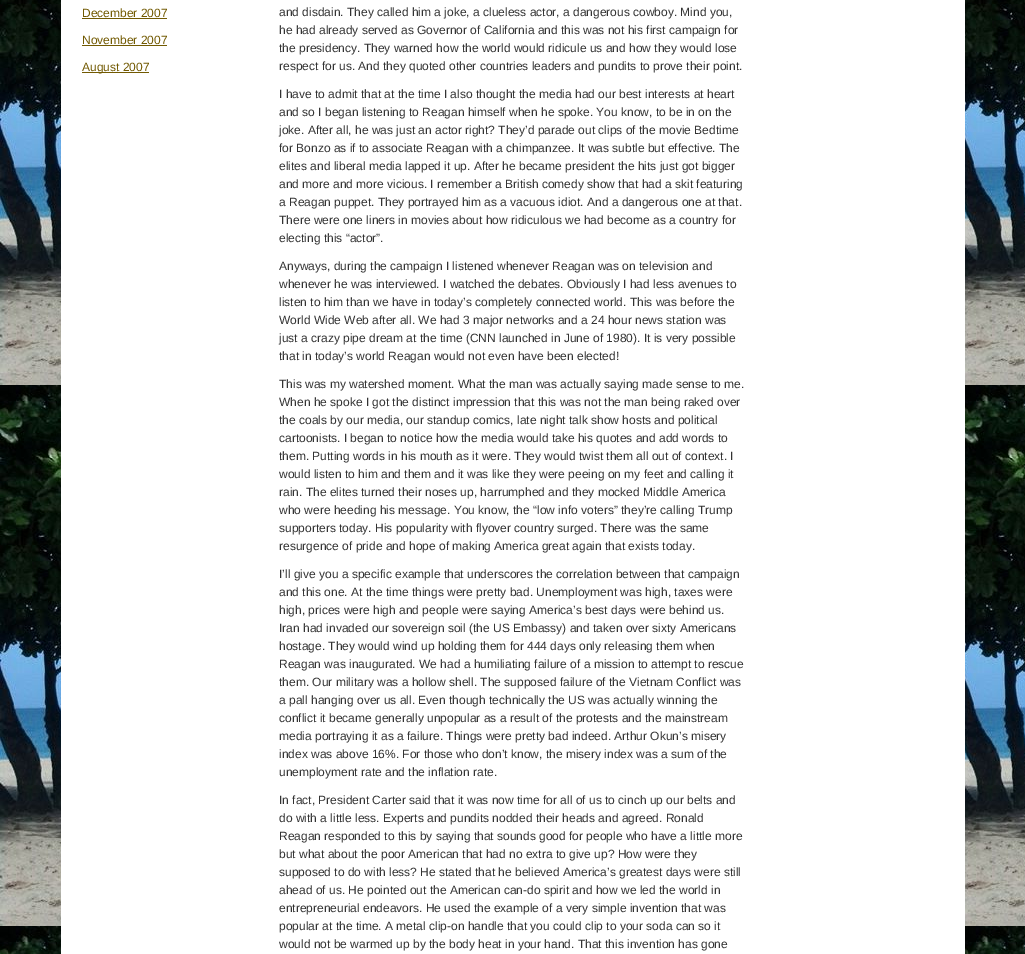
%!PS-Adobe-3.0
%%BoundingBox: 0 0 1025 954
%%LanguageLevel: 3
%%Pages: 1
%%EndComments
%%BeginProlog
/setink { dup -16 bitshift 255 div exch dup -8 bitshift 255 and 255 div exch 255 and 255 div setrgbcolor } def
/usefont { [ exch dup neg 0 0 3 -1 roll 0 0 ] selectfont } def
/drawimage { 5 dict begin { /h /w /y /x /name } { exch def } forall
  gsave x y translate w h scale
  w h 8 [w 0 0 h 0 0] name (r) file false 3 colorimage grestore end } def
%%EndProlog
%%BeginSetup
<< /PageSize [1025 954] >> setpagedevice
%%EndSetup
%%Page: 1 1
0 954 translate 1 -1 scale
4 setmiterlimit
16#FFFFFF setink
0 0 1025 954 rectfill
(img1.raw) 0 0 1025 954 drawimage
61 0 904 954 rectfill
/LiberationSans-Regular 12 usefont
16#725A02 setink
82 17 moveto (December 2007) show
82 18 85 1 rectfill
82 44 moveto (November 2007) show
82 45 85 1 rectfill
82 72 67 1 rectfill
82 71 moveto (August 2007) show
16#333333 setink
[
    [(and disdain. They called him a joke, a clueless actor, a dangerous cowboy. Mind you,) 279 16]
    [(he had already served as Governor of California and this was not his first campaign for) 279 34]
    [(the presidency. They warned how the world would ridicule us and how they would lose) 279 52]
    [(respect for us. And they quoted other countries leaders and pundits to prove their point.) 279 70]
    [(I have to admit that at the time I also thought the media had our best interests at heart) 279 98]
    [(and so I began listening to Reagan himself when he spoke. You know, to be in on the) 279 116]
    [(joke. After all, he was just an actor right? They’d parade out clips of the movie Bedtime) 279 134]
    [(for Bonzo as if to associate Reagan with a chimpanzee. It was subtle but effective. The) 279 152]
    [(elites and liberal media lapped it up. After he became president the hits just got bigger) 279 170]
    [(and more and more vicious. I remember a British comedy show that had a skit featuring) 279 188]
    [(a Reagan puppet. They portrayed him as a vacuous idiot. And a dangerous one at that.) 279 206]
    [(There were one liners in movies about how ridiculous we had become as a country for) 279 224]
    [(electing this “actor”.) 279 242]
    [(Anyways, during the campaign I listened whenever Reagan was on television and) 279 270]
    [(whenever he was interviewed. I watched the debates. Obviously I had less avenues to) 279 288]
    [(listen to him than we have in today’s completely connected world. This was before the) 279 306]
    [(World Wide Web after all. We had 3 major networks and a 24 hour news station was) 279 324]
    [(just a crazy pipe dream at the time \(CNN launched in June of 1980\). It is very possible) 279 342]
    [(that in today’s world Reagan would not even have been elected!) 279 360]
    [(This was my watershed moment. What the man was actually saying made sense to me.) 279 388]
    [(When he spoke I got the distinct impression that this was not the man being raked over) 279 406]
    [(the coals by our media, our standup comics, late night talk show hosts and political) 279 424]
    [(cartoonists. I began to notice how the media would take his quotes and add words to) 279 442]
    [(them. Putting words in his mouth as it were. They would twist them all out of context. I) 279 460]
    [(would listen to him and them and it was like they were peeing on my feet and calling it) 279 478]
    [(rain. The elites turned their noses up, harrumphed and they mocked Middle America) 279 496]
    [(who were heeding his message. You know, the “low info voters” they’re calling Trump) 279 514]
    [(supporters today. His popularity with flyover country surged. There was the same) 279 532]
    [(resurgence of pride and hope of making America great again that exists today.) 279 550]
    [(I’ll give you a specific example that underscores the correlation between that campaign) 279 578]
    [(and this one. At the time things were pretty bad. Unemployment was high, taxes were) 279 596]
    [(high, prices were high and people were saying America’s best days were behind us.) 279 614]
    [(Iran had invaded our sovereign soil \(the US Embassy\) and taken over sixty Americans) 279 632]
    [(hostage. They would wind up holding them for 444 days only releasing them when) 279 650]
    [(Reagan was inaugurated. We had a humiliating failure of a mission to attempt to rescue) 279 668]
    [(them. Our military was a hollow shell. The supposed failure of the Vietnam Conflict was) 279 686]
    [(a pall hanging over us all. Even though technically the US was actually winning the) 279 704]
    [(conflict it became generally unpopular as a result of the protests and the mainstream) 279 722]
    [(media portraying it as a failure. Things were pretty bad indeed. Arthur Okun’s misery) 279 740]
    [(index was above 16%. For those who don’t know, the misery index was a sum of the) 279 758]
    [(unemployment rate and the inflation rate.) 279 776]
    [(In fact, President Carter said that it was now time for all of us to cinch up our belts and) 279 804]
    [(do with a little less. Experts and pundits nodded their heads and agreed. Ronald) 279 822]
    [(Reagan responded to this by saying that sounds good for people who have a little more) 279 840]
    [(but what about the poor American that had no extra to give up? How were they) 279 858]
    [(supposed to do with less? He stated that he believed America’s greatest days were still) 279 876]
    [(ahead of us. He pointed out the American can-do spirit and how we led the world in) 279 894]
    [(entrepreneurial endeavors. He used the example of a very simple invention that was) 279 912]
    [(popular at the time. A metal clip-on handle that you could clip to your soda can so it) 279 930]
    [(would not be warmed up by the body heat in your hand. That this invention has gone) 279 948]
] { aload pop moveto show } forall
showpage
%%EOF
